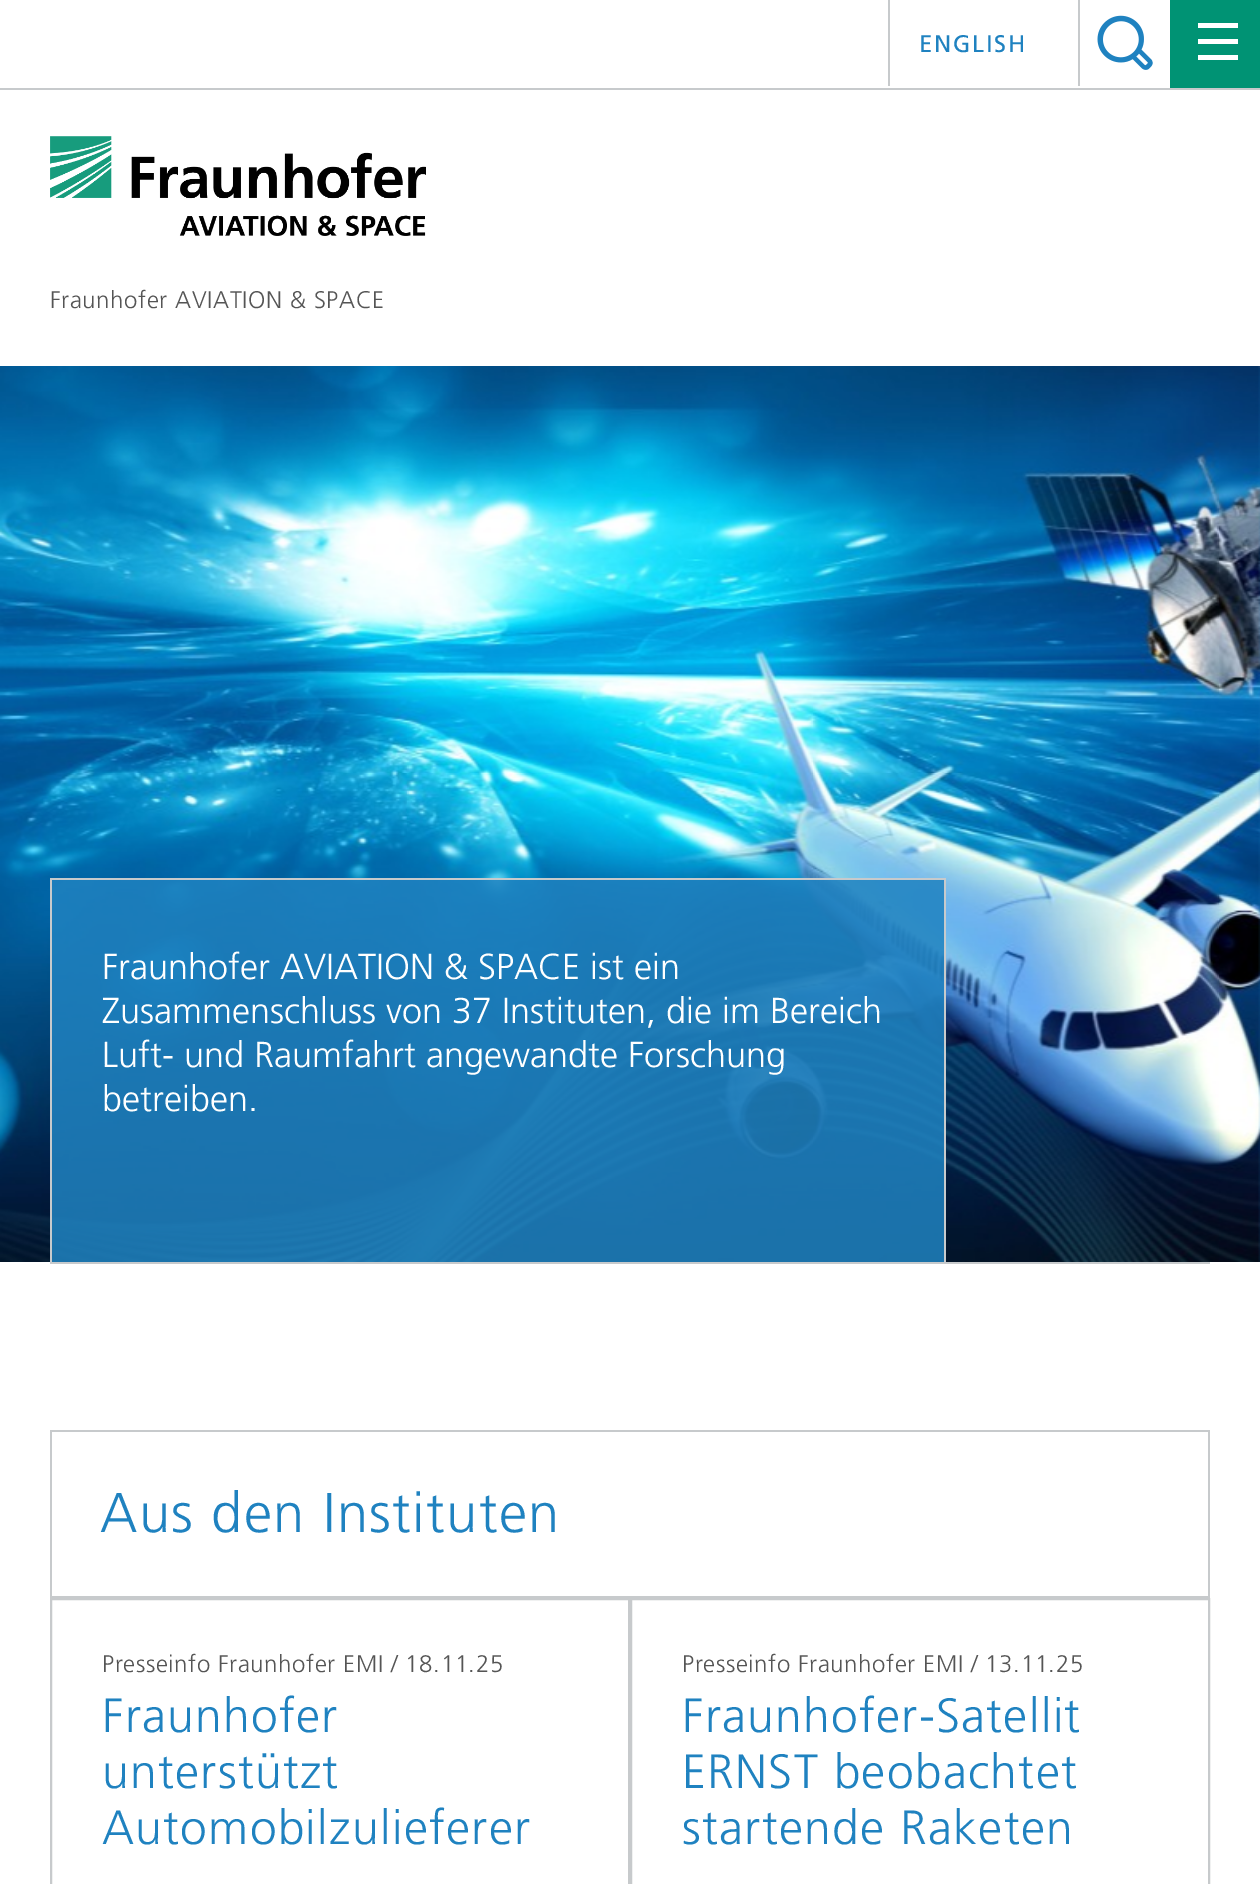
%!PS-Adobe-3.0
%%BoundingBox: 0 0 1260 1884
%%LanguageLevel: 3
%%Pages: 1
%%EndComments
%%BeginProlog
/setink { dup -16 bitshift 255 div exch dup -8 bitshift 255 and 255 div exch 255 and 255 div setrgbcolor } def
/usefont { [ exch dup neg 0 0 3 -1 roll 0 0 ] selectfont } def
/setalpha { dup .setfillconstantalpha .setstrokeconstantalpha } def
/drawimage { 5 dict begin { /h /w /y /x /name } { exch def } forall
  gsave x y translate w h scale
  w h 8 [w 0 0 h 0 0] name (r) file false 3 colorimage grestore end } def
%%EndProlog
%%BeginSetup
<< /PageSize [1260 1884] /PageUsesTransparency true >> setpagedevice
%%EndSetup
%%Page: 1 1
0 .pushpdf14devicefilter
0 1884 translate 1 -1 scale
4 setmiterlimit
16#FFFFFF setink
0 0 1260 1884 rectfill
(img1.raw) 1097 15 56 55 drawimage
(img2.raw) 50 136 376 100 drawimage
[
    [0 88 1260 2 16#C7CACC]
    [1078 0 2 86 16#C7CACC]
    [888 0 2 86 16#C7CACC]
] { aload pop setink rectfill } forall
/Frutiger-Regular 24 usefont
16#1F82C0 setink
919 52 moveto 1.75 0 (ENGLISH) ashow
16#009374 setink
1170 0 90 88 rectfill
16#FFFFFF setink
1198 39 moveto 1198 44 lineto 1238 44 lineto 1238 39 lineto closepath 1198 55 moveto 1198 60 lineto 1238 60 lineto 1238 55 lineto closepath 1198 23 moveto 1198 28 lineto 1238 28 lineto 1238 23 lineto closepath fill
/Frutiger-Light 24 usefont
16#555555 setink
50 308 moveto 0.6 0 (Fraunhofer AVIATION & SPACE) ashow
(img3.raw) 0 366 1260 896 drawimage
0.85 setalpha
[
    [52 880 892 382 16#1F82C0]
] { aload pop setink rectfill } forall
1 setalpha
[
    [50 878 896 2 16#C7CACC]
    [944 878 2 384 16#C7CACC]
    [50 878 2 384 16#C7CACC]
] { aload pop setink rectfill } forall
/Frutiger-Light 36 usefont
16#FFFFFF setink
[
    [(Fraunhofer AVIATION & SPACE ist ein) 102 979]
    [(Zusammenschluss von 37 Instituten, die im Bereich) 102 1023]
    [(Luft- und Raumfahrt angewandte Forschung) 102 1067]
    [(betreiben.) 102 1111]
] { aload pop moveto show } forall
[
    [50 1262 1160 2 16#C7CACC]
    [50 1430 1160 2 16#C7CACC]
    [1208 1432 2 164 16#C7CACC]
    [50 1432 2 164 16#C7CACC]
    [50 1596 1160 2 16#C7CACC]
] { aload pop setink rectfill } forall
/Frutiger-Light 56 usefont
16#1F82C0 setink
100 1532 moveto 1.4 0 (Aus den Instituten) ashow
16#C7CACC setink
2 setlinewidth
51 1599 578 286 rectstroke
/Frutiger-Light 24 usefont
16#555555 setink
102 1672 moveto 0.6 0 (Presseinfo Fraunhofer EMI / 18.11.25) ashow
/Frutiger-Light 48 usefont
16#1F82C0 setink
102 1732 moveto 1.25 0 (Fraunhofer) ashow
102 1788 moveto 1.25 0 (unterstützt) ashow
102 1844 moveto 1.25 0 (Automobilzulieferer) ashow
16#C7CACC setink
631 1599 578 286 rectstroke
/Frutiger-Light 24 usefont
16#555555 setink
682 1672 moveto 0.6 0 (Presseinfo Fraunhofer EMI / 13.11.25) ashow
/Frutiger-Light 48 usefont
16#1F82C0 setink
682 1732 moveto 1.25 0 (Fraunhofer-Satellit) ashow
682 1788 moveto 1.25 0 (ERNST beobachtet) ashow
682 1844 moveto 1.25 0 (startende Raketen) ashow
.poppdf14devicefilter showpage
%%EOF
